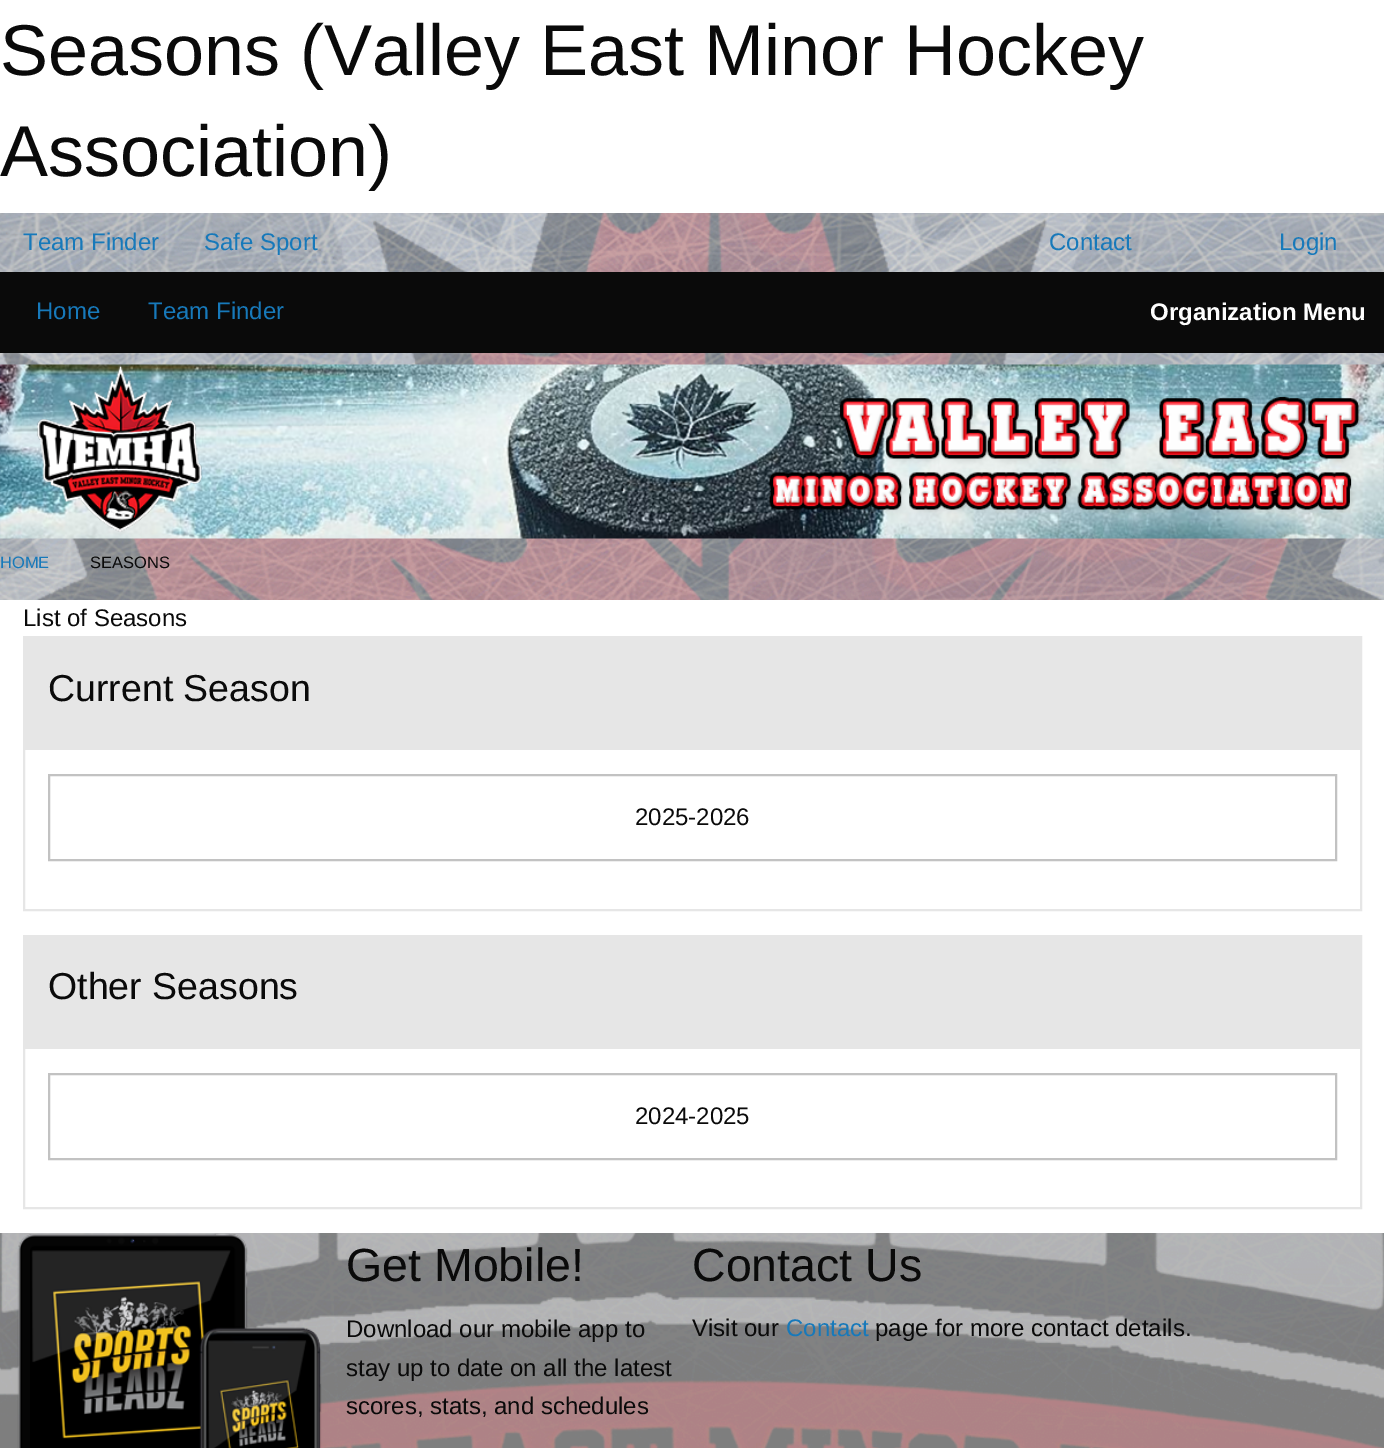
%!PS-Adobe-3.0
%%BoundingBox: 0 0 1384 1448
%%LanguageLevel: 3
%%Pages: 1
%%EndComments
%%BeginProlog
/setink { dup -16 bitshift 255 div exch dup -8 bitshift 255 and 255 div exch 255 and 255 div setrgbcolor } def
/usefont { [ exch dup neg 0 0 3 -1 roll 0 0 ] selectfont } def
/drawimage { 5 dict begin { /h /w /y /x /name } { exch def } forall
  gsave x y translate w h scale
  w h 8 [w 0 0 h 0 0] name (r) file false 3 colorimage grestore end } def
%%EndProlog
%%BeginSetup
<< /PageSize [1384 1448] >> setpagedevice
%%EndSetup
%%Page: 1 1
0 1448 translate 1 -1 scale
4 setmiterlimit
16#FFFFFF setink
0 0 1384 1448 rectfill
/LiberationSans-Regular 72 usefont
16#0A0A0A setink
0 75 moveto (Seasons \(Valley East Minor Hockey) show
0 176 moveto (Association\)) show
(img1.raw) 0 213 1384 1235 drawimage
/LiberationSans-Regular 24 usefont
16#1779BA setink
[
    [(Team Finder) 23 250]
    [(Safe Sport) 204 250]
    [(Contact) 1049 250]
    [(Login) 1279 250]
] { aload pop moveto show } forall
16#0A0A0A setink
0 272 1384 81 rectfill
16#1779BA setink
36 319 moveto (Home) show
148 319 moveto (Team Finder) show
/LiberationSans-Bold 24 usefont
16#FEFEFE setink
1150 320 moveto (Organization Menu) show
(img2.raw) 0 364 1384 175 drawimage
/LiberationSans-Regular 16.5 usefont
16#1779BA setink
0 568 moveto (HOME) show
16#0A0A0A setink
90 568 moveto (SEASONS) show
16#FFFFFF setink
0 600 1384 633 rectfill
/LiberationSans-Regular 24 usefont
16#0A0A0A setink
23 626 moveto (List of Seasons) show
16#E6E6E6 setink
2 setlinewidth
24 637 1337 273 rectstroke
25 638 1335 112 rectfill
/LiberationSans-Regular 37.5 usefont
16#0A0A0A setink
48 701 moveto (Current Season) show
16#C2C2C2 setink
49 775 1287 85 rectstroke
/LiberationSans-Regular 24 usefont
16#0A0A0A setink
635 825 moveto (2025-2026) show
16#E6E6E6 setink
24 936 1337 272 rectstroke
25 937 1335 112 rectfill
/LiberationSans-Regular 37.5 usefont
16#0A0A0A setink
48 999 moveto (Other Seasons) show
16#C2C2C2 setink
49 1074 1287 85 rectstroke
/LiberationSans-Regular 24 usefont
16#0A0A0A setink
635 1124 moveto (2024-2025) show
(img3.raw) 17 1233 305 215 drawimage
/LiberationSans-Regular 46.5 usefont
346 1281 moveto (Get Mobile!) show
/LiberationSans-Regular 24 usefont
[
    [(Download our mobile app to) 346 1337]
    [(stay up to date on all the latest) 346 1376]
    [(scores, stats, and schedules) 346 1414]
] { aload pop moveto show } forall
/LiberationSans-Regular 46.5 usefont
692 1281 moveto (Contact Us) show
/LiberationSans-Regular 24 usefont
692 1336 moveto (Visit our) show
16#1779BA setink
786 1336 moveto (Contact) show
16#0A0A0A setink
875 1336 moveto (page for more contact details.) show
showpage
%%EOF
